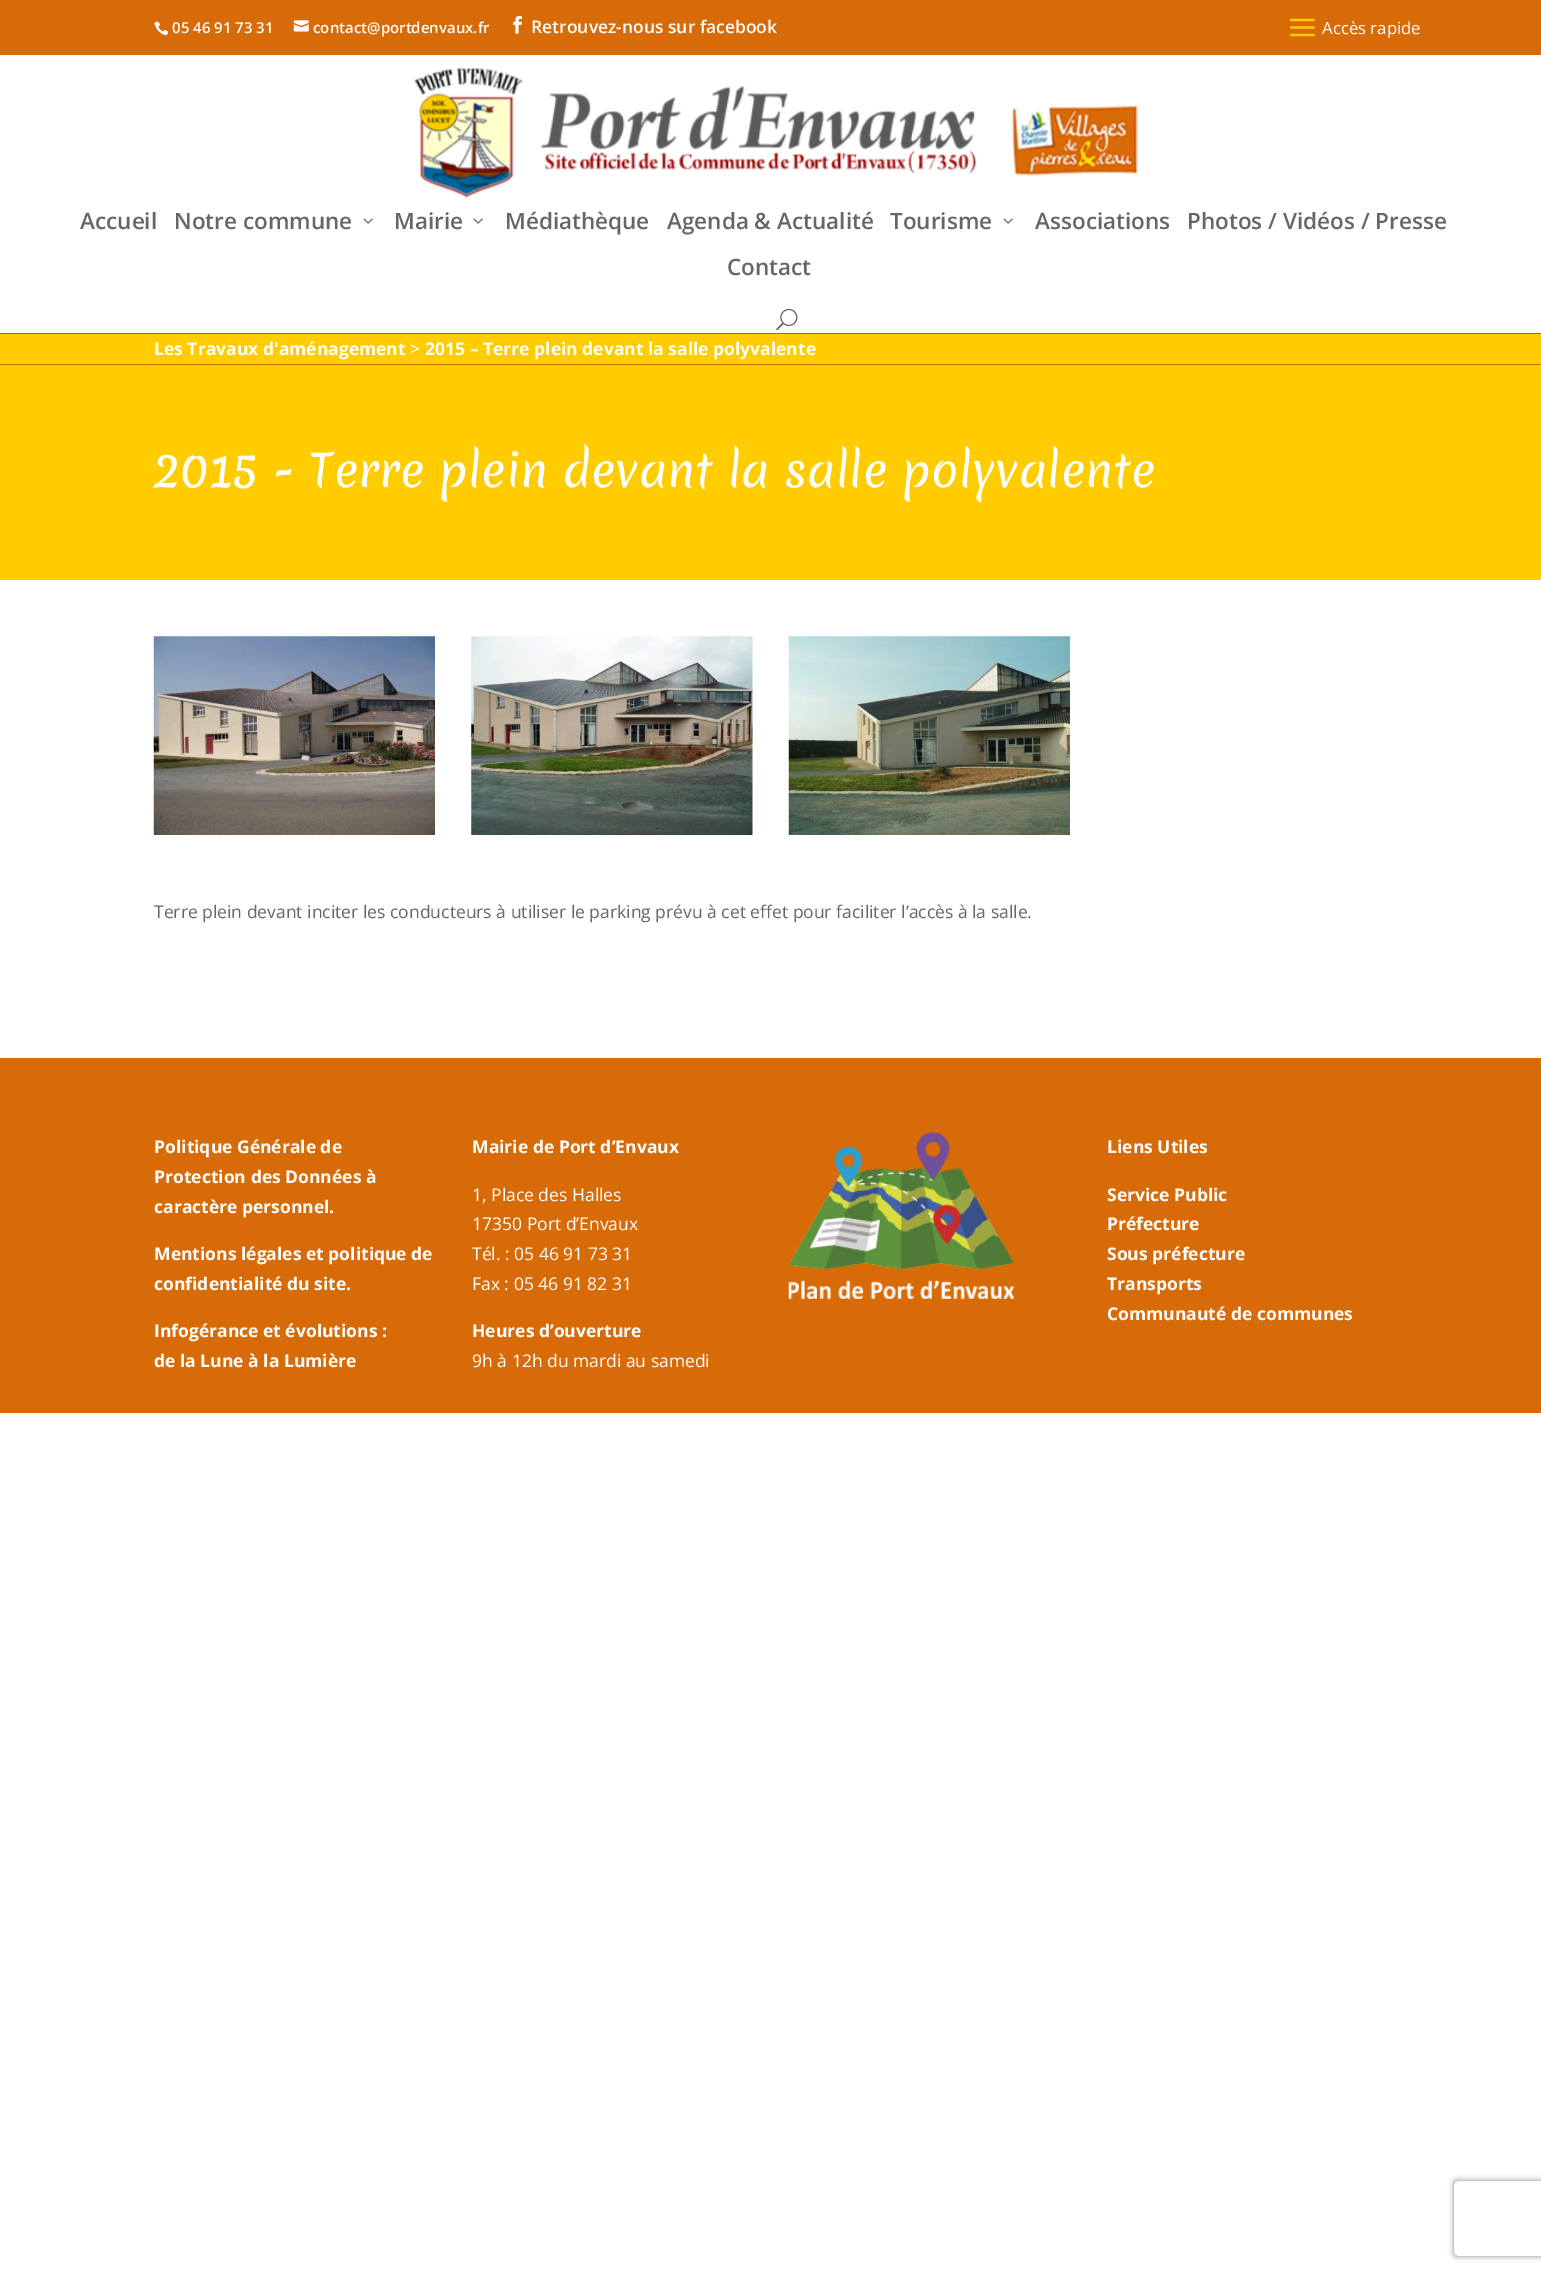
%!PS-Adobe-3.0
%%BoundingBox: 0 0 1541 2273
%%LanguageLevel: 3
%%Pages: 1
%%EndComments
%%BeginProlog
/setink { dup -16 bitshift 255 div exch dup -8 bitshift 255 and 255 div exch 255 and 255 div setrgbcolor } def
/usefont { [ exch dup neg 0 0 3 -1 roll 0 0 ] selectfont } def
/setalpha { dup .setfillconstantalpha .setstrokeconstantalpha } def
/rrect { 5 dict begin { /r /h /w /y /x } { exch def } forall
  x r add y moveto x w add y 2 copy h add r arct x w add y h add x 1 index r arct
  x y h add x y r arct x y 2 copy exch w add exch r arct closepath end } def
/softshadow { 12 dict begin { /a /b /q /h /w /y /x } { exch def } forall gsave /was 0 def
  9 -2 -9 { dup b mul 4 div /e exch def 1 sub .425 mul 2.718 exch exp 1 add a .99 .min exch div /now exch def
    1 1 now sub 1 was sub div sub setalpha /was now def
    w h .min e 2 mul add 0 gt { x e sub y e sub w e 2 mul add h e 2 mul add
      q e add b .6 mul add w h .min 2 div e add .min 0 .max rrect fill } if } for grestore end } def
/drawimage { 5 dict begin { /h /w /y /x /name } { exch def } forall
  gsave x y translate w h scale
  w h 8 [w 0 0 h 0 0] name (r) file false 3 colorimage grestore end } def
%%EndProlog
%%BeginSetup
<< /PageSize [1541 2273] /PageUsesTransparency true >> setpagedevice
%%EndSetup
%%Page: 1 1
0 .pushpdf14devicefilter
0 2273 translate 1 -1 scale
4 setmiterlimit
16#FFFFFF setink
0 0 1541 2273 rectfill
16#D76B08 setink
0 0 1541 55 rectfill
(img1.raw) 154 21 15 15 drawimage
/OpenSans-SemiBold 15 usefont
16#FFFFFF setink
172 33 moveto (05 46 91 73 31) show
(img2.raw) 293 20 16 12 drawimage
313 33 moveto (contact@portdenvaux.fr) show
(img3.raw) 513 16 9 18 drawimage
/OpenSans-SemiBold 17.5 usefont
531 33 moveto (Retrouvez-nous sur facebook) show
(img4.raw) 1290 18 25 19 drawimage
/OpenSans-Regular 16.75 usefont
1322 34 moveto (Accès rapide) show
(img5.raw) 414 68 725 131 drawimage
/OpenSans-SemiBold 22.5 usefont
16#666666 setink
80 229 moveto (Accueil) show
174 229 moveto (Notre commune) show
(img6.raw) 363 218 10 6 drawimage
394 229 moveto (Mairie) show
(img6.raw) 473 218 10 6 drawimage
[
    [(Médiathèque) 505 229]
    [(Agenda & Actualité) 667 229]
    [(Tourisme) 890 229]
] { aload pop moveto show } forall
(img6.raw) 1003 218 10 6 drawimage
[
    [(Associations) 1035 229]
    [(Photos / Vidéos / Presse) 1187 229]
    [(Contact) 727 275]
] { aload pop moveto show } forall
(img7.raw) 776 308 22 23 drawimage
[
    [0 334 1541 30 16#FFCC00]
    [0 333 1541 1 16#C26007]
    [0 364 1541 1 16#D76B08]
] { aload pop setink rectfill } forall
/OpenSans-Bold 17.5 usefont
16#FFFFFF setink
154 355 moveto (Les Travaux d'aménagement) show
/OpenSans-Medium 17.5 usefont
410 355 moveto (>) show
/OpenSans-Bold 17.5 usefont
425 355 moveto (2015 – Terre plein devant la salle polyvalente) show
16#FFCC00 setink
0 365 1541 215 rectfill
/Merienda-Regular 45 usefont
16#FFFFFF setink
154 487 moveto (2015 - Terre plein devant la salle polyvalente) show
(img8.raw) 153 636 282 199 drawimage
(img9.raw) 471 636 282 199 drawimage
(img10.raw) 788 636 282 199 drawimage
/OpenSans-Regular 17.5 usefont
16#666666 setink
154 918 moveto (Terre plein devant inciter les conducteurs à utiliser le parking prévu à cet effet pour faciliter l’accès à la salle.) show
16#D76B08 setink
0 1058 1541 355 rectfill
/OpenSans-Bold 17.5 usefont
16#FFFFFF setink
[
    [(Politique Générale de) 154 1153]
    [(Protection des Données à) 154 1183]
    [(caractère personnel.) 154 1213]
    [(Mentions légales et politique de) 154 1260]
    [(confidentialité du site.) 154 1290]
    [(Infogérance et évolutions :) 154 1337]
    [(de la Lune à la Lumière) 154 1367]
    [(Mairie de Port d’Envaux) 472 1153]
] { aload pop moveto show } forall
/OpenSans-Regular 17.5 usefont
[
    [(1, Place des Halles) 472 1201]
    [(17350 Port d’Envaux) 472 1230]
    [(Tél. : 05 46 91 73 31) 472 1260]
    [(Fax : 05 46 91 82 31) 472 1290]
] { aload pop moveto show } forall
/OpenSans-Bold 17.5 usefont
472 1337 moveto (Heures d’ouverture) show
/OpenSans-Regular 17.5 usefont
472 1367 moveto (9h à 12h du mardi au samedi) show
(img11.raw) 788 1132 226 167 drawimage
/OpenSans-Bold 17.5 usefont
[
    [(Liens Utiles) 1107 1153]
    [(Service Public) 1107 1201]
    [(Préfecture) 1107 1230]
    [(Sous préfecture) 1107 1260]
    [(Transports) 1107 1290]
    [(Communauté de communes) 1107 1320]
] { aload pop moveto show } forall
gsave
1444 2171 moveto 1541 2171 lineto 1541 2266 lineto 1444 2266 lineto closepath 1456.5 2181 moveto 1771.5 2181 lineto 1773 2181 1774 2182 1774 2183.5 curveto 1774 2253.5 lineto 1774 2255 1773 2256 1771.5 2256 curveto 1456.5 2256 lineto 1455 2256 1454 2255 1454 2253.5 curveto 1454 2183.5 lineto 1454 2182 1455 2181 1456.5 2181 curveto closepath eoclip newpath
16#808080 setink
1454 2181 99 75 2.5 3 1 softshadow
grestore
.poppdf14devicefilter showpage
%%EOF
